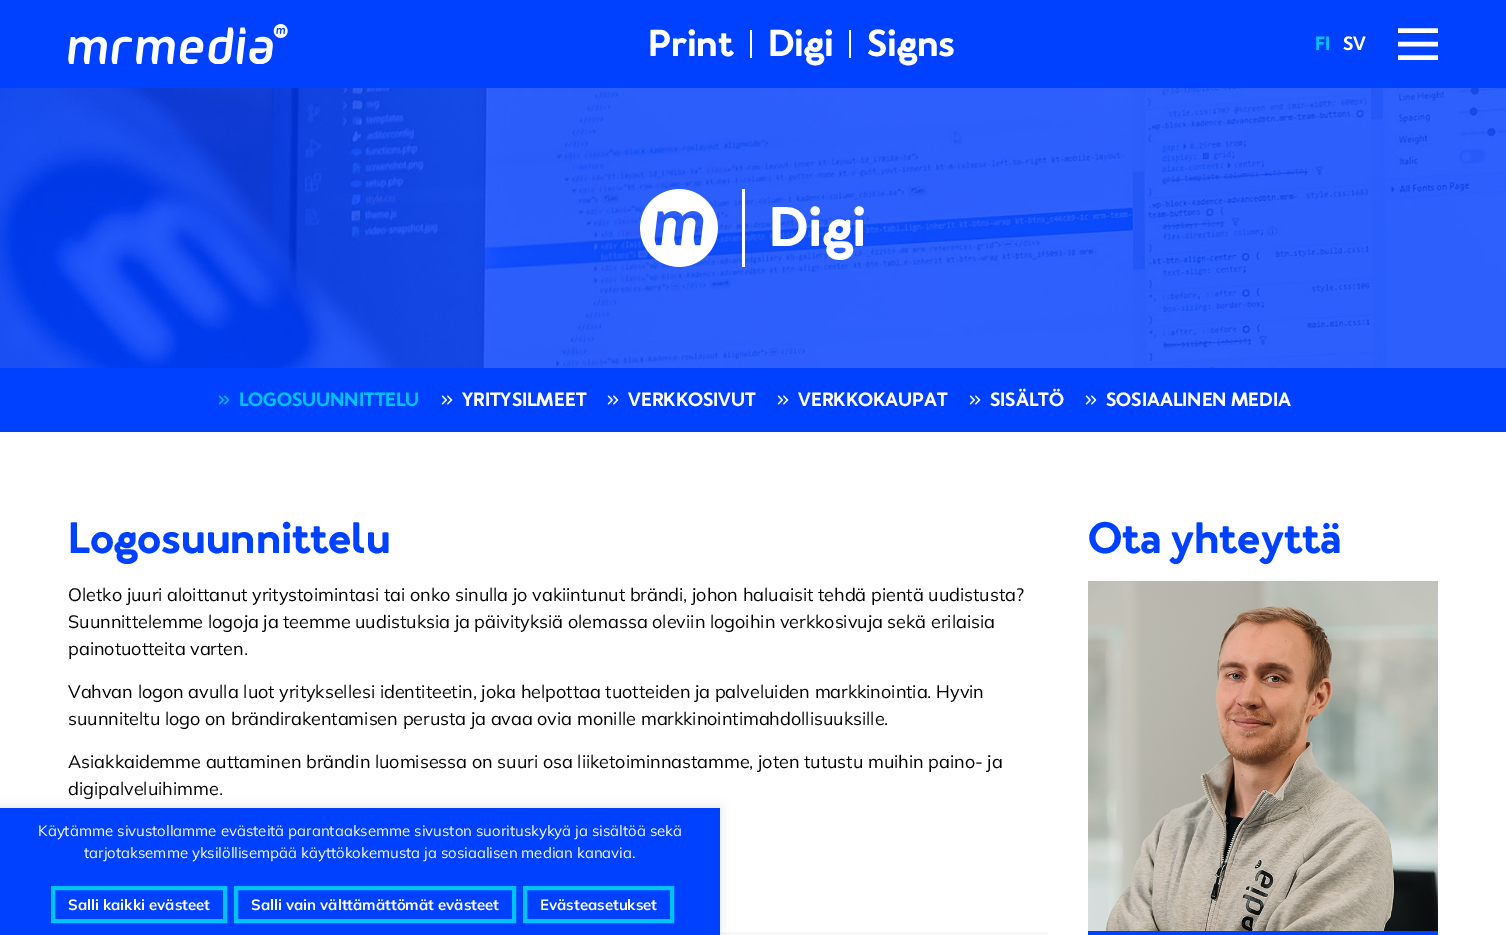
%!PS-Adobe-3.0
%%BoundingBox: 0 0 1506 935
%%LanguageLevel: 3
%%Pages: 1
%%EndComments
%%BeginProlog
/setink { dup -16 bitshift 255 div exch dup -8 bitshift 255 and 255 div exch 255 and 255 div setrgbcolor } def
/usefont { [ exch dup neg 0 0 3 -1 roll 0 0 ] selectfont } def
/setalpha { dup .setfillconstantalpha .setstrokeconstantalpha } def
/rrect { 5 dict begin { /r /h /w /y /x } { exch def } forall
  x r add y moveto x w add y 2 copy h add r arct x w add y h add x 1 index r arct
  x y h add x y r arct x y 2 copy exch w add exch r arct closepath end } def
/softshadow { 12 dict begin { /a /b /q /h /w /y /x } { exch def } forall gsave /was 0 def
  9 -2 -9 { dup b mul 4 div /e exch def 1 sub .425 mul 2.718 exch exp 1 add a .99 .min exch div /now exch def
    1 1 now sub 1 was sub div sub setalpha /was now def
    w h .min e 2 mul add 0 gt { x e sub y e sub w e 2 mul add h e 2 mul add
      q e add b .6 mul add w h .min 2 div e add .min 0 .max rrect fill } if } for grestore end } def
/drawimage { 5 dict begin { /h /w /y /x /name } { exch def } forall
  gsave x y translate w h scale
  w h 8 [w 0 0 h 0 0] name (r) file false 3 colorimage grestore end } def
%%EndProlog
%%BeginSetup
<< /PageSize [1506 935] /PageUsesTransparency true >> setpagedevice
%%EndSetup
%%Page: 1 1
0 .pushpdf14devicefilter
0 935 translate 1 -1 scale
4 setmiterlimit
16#FFFFFF setink
0 0 1506 935 rectfill
16#0040FF setink
0 0 1506 88 rectfill
(img1.raw) 68 24 220 40 drawimage
/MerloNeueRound-Bold 35 usefont
16#FFFFFF setink
648 56 moveto (Print) show
750 30 2 28 rectfill
768 56 moveto (Digi) show
849 30 2 28 rectfill
867 56 moveto (Signs) show
/MerloNeueRound-Bold 18 usefont
16#00C3FF setink
1315 50 moveto (FI) show
16#FFFFFF setink
1343 50 moveto (SV) show
4.4 setlinewidth
1398 44 moveto 1438 44 lineto 1398 30.5 moveto 1438 30.5 lineto 1398 57.5 moveto 1438 57.5 lineto stroke
(img2.raw) 0 88 1506 280 drawimage
742 189 3 78 rectfill
(img3.raw) 640 189 78 78 drawimage
/MerloNeueRound-Bold 52 usefont
769 246 moveto (Digi) show
16#0040FF setink
0 368 1506 64 rectfill
(img4.raw) 218 395 12 10 drawimage
/MerloNeueRound-Bold 18 usefont
16#00C3FF setink
239 406 moveto (LOGOSUUNNITTELU) show
(img5.raw) 441 395 12 10 drawimage
16#FFFFFF setink
462 406 moveto (YRITYSILMEET) show
(img5.raw) 607 395 12 10 drawimage
628 406 moveto (VERKKOSIVUT) show
(img5.raw) 777 395 12 10 drawimage
798 406 moveto (VERKKOKAUPAT) show
(img5.raw) 969 395 12 10 drawimage
990 406 moveto (SISÄLTÖ) show
(img5.raw) 1085 395 12 10 drawimage
1106 406 moveto (SOSIAALINEN MEDIA) show
/MerloNeueRound-Bold 41 usefont
16#0040FF setink
68 553 moveto (Logosuunnittelu) show
/Mulish-ExtraLight 18 usefont
16#000000 setink
[
    [(Oletko juuri aloittanut yritystoimintasi tai onko sinulla jo vakiintunut brändi, johon haluaisit tehdä pientä uudistusta?) 68 601]
    [(Suunnittelemme logoja ja teemme uudistuksia ja päivityksiä olemassa oleviin logoihin verkkosivuja sekä erilaisia) 68 628]
    [(painotuotteita varten.) 68 655]
    [(Vahvan logon avulla luot yrityksellesi identiteetin, joka helpottaa tuotteiden ja palveluiden markkinointia. Hyvin) 68 698]
    [(suunniteltu logo on brändirakentamisen perusta ja avaa ovia monille markkinointimahdollisuuksille.) 68 725]
    [(Asiakkaidemme auttaminen brändin luomisessa on suuri osa liiketoiminnastamme, joten tutustu muihin paino- ja) 68 768]
    [(digipalveluihimme.) 68 795]
] { aload pop moveto show } forall
16#F7F7F7 setink
720 932 328 3 rectfill
/MerloNeueRound-Bold 41 usefont
16#0040FF setink
1088 553 moveto (Ota yhteyttä) show
(img6.raw) 1088 581 350 350 drawimage
1088 931 350 4 rectfill
16#ACABAB setink
0 807 720 127 0 5 0.3 softshadow
16#0040FF setink
0 808 720 127 rectfill
/Mulish-ExtraLight 15 usefont
16#FFFFFF setink
38 836 moveto (Käytämme sivustollamme evästeitä parantaaksemme sivuston suorituskykyä ja sisältöä sekä) show
84 858 moveto (tarjotaksemme yksilöllisempää käyttökokemusta ja sosiaalisen median kanavia.) show
16#00C3FF setink
4 setlinewidth
53 888 172 33 rectstroke
/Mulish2-ExtraLight 15 usefont
16#FFFFFF setink
68 910 moveto (Salli kaikki evästeet) show
16#00C3FF setink
236 888 278 33 rectstroke
16#FFFFFF setink
251 910 moveto (Salli vain välttämättömät evästeet) show
16#00C3FF setink
525 888 147 33 rectstroke
16#FFFFFF setink
540 910 moveto (Evästeasetukset) show
.poppdf14devicefilter showpage
%%EOF
